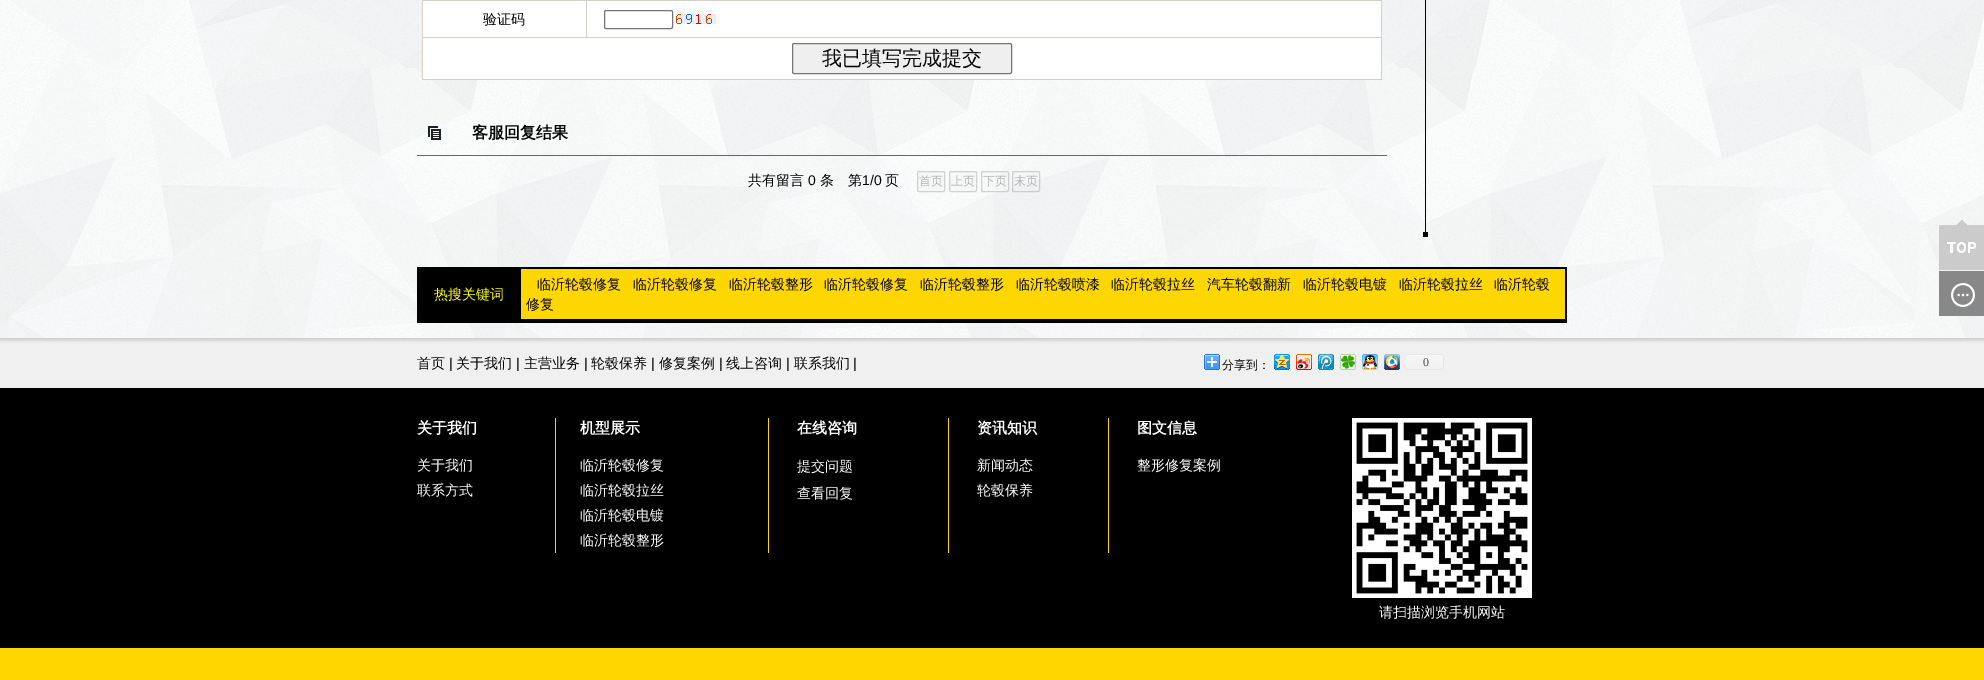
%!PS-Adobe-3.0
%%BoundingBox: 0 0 1984 680
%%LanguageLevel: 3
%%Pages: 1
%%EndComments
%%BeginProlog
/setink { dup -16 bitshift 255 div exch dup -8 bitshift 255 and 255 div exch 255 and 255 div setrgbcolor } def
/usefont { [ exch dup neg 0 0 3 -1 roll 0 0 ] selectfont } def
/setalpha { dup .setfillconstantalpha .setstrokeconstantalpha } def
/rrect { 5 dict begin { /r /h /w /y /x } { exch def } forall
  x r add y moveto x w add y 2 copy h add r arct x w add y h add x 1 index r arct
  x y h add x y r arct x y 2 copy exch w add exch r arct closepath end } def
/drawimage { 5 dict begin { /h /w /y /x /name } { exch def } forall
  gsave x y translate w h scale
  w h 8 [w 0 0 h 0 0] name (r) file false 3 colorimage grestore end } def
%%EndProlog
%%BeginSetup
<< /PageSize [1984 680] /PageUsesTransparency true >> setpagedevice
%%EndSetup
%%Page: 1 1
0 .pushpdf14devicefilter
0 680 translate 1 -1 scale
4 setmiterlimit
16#FFFFFF setink
0 0 1984 680 rectfill
(img1.raw) 0 0 1984 338 drawimage
16#D4D0C8 setink
422 0 960 80 rectfill
16#FFFFFF setink
423 1 163 36 rectfill
/WenQuanYiZenHei-Medium 14 usefont
16#000000 setink
483 24 moveto (验证码) show
16#FFFFFF setink
587 1 794 36 rectfill
16#767676 setink
604.5 10.5 68 18 1.5 rrect stroke
(img2.raw) 676 14 40 10 drawimage
16#FFFFFF setink
423 38 958 41 rectfill
16#EFEFEF setink
792.5 43.5 219 30 1.5 rrect gsave fill grestore
16#767676 setink
stroke
/WenQuanYiZenHei-Medium 20 usefont
16#000000 setink
822 65 moveto (我已填写完成提交) show
(img3.raw) 427 124 21 18 drawimage
/WenQuanYiZenHei-Bold 16 usefont
472 138 moveto (客服回复结果) show
16#666666 setink
417 155 970 1 rectfill
/WenQuanYiZenHei-Medium 14 usefont
16#000000 setink
748 185 moveto (共有留言) show
/LiberationSans-Regular 14 usefont
808 185 moveto (0) show
/WenQuanYiZenHei-Medium 14 usefont
820 185 moveto (条　第) show
/LiberationSans-Regular 14 usefont
862 185 moveto (1/0) show
/WenQuanYiZenHei-Medium 14 usefont
885 185 moveto (页) show
0.3 setalpha
16#EFEFEF setink
917 171 28 21 2 rrect fill
16#767676 setink
917.5 171.5 27 20 1.5 rrect stroke
/WenQuanYiZenHei-Medium 12 usefont
1 setalpha
16#B1B2B2 setink
919 185 moveto (首页) show
0.3 setalpha
16#EFEFEF setink
949 171 28 21 2 rrect fill
16#767676 setink
949.5 171.5 27 20 1.5 rrect stroke
1 setalpha
16#B1B2B2 setink
951 185 moveto (上页) show
0.3 setalpha
16#EFEFEF setink
981 171 28 21 2 rrect fill
16#767676 setink
981.5 171.5 27 20 1.5 rrect stroke
1 setalpha
16#B1B2B2 setink
983 185 moveto (下页) show
0.3 setalpha
16#EFEFEF setink
1012 171 28 21 2 rrect fill
16#767676 setink
1012.5 171.5 27 20 1.5 rrect stroke
1 setalpha
16#B1B2B2 setink
1014 185 moveto (末页) show
16#000000 setink
1425 0 1 194 rectfill
(img4.raw) 1423 194 5 43 drawimage
417 267 1150 56 rectfill
/WenQuanYiZenHei-Medium 14 usefont
16#FFFF00 setink
434 299 moveto (热搜关键词) show
16#FED700 setink
521 269 1044 50 rectfill
16#000000 setink
[
    [(临沂轮毂修复) 537 289]
    [(临沂轮毂修复) 633 289]
    [(临沂轮毂整形) 729 289]
    [(临沂轮毂修复) 824 289]
    [(临沂轮毂整形) 920 289]
    [(临沂轮毂喷漆) 1016 289]
    [(临沂轮毂拉丝) 1111 289]
    [(汽车轮毂翻新) 1207 289]
    [(临沂轮毂电镀) 1303 289]
    [(临沂轮毂拉丝) 1399 289]
    [(临沂轮毂) 1494 289]
    [(修复) 526 309]
] { aload pop moveto show } forall
(img5.raw) 1939 220 45 50 drawimage
(img6.raw) 1939 271 45 45 drawimage
(img7.raw) 0 338 1984 50 drawimage
417 368 moveto (首页) show
/LiberationSans-Regular 14 usefont
449 368 moveto (|) show
/WenQuanYiZenHei-Medium 14 usefont
456 368 moveto (关于我们) show
/LiberationSans-Regular 14 usefont
516 368 moveto (|) show
/WenQuanYiZenHei-Medium 14 usefont
524 368 moveto (主营业务) show
/LiberationSans-Regular 14 usefont
584 368 moveto (|) show
/WenQuanYiZenHei-Medium 14 usefont
591 368 moveto (轮毂保养) show
/LiberationSans-Regular 14 usefont
651 368 moveto (|) show
/WenQuanYiZenHei-Medium 14 usefont
659 368 moveto (修复案例) show
/LiberationSans-Regular 14 usefont
719 368 moveto (|) show
/WenQuanYiZenHei-Medium 14 usefont
726 368 moveto (线上咨询) show
/LiberationSans-Regular 14 usefont
786 368 moveto (|) show
/WenQuanYiZenHei-Medium 14 usefont
794 368 moveto (联系我们) show
/LiberationSans-Regular 14 usefont
853 368 moveto (|) show
(img8.raw) 1204 354 16 16 drawimage
/WenQuanYiZenHei-Medium 12 usefont
1222 369 moveto (分享到：) show
(img9.raw) 1274 354 16 16 drawimage
(img10.raw) 1296 354 16 16 drawimage
(img11.raw) 1318 354 16 16 drawimage
(img12.raw) 1340 354 16 16 drawimage
(img13.raw) 1362 354 16 16 drawimage
(img14.raw) 1384 354 16 16 drawimage
(img15.raw) 1402 354 42 16 drawimage
/LiberationSerif-Regular 12 usefont
16#454545 setink
1423 366 moveto (0) show
16#000000 setink
0 388 1984 260 rectfill
/WenQuanYiZenHei-Bold 15 usefont
16#FFFFFF setink
417 433 moveto (关于我们) show
/WenQuanYiZenHei-Medium 14 usefont
417 470 moveto (关于我们) show
417 495 moveto (联系方式) show
16#FED700 setink
555 418 1 135 rectfill
/WenQuanYiZenHei-Bold 15 usefont
16#FFFFFF setink
580 433 moveto (机型展示) show
/WenQuanYiZenHei-Medium 14 usefont
[
    [(临沂轮毂修复) 580 470]
    [(临沂轮毂拉丝) 580 495]
    [(临沂轮毂电镀) 580 520]
    [(临沂轮毂整形) 580 545]
] { aload pop moveto show } forall
16#FED700 setink
768 418 1 135 rectfill
/WenQuanYiZenHei-Bold 15 usefont
16#FFFFFF setink
797 433 moveto (在线咨询) show
/WenQuanYiZenHei-Medium 14 usefont
797 471 moveto (提交问题) show
797 498 moveto (查看回复) show
16#FED700 setink
948 418 1 135 rectfill
/WenQuanYiZenHei-Bold 15 usefont
16#FFFFFF setink
977 433 moveto (资讯知识) show
/WenQuanYiZenHei-Medium 14 usefont
977 470 moveto (新闻动态) show
977 495 moveto (轮毂保养) show
16#FED700 setink
1108 418 1 135 rectfill
/WenQuanYiZenHei-Bold 15 usefont
16#FFFFFF setink
1137 433 moveto (图文信息) show
/WenQuanYiZenHei-Medium 14 usefont
1137 470 moveto (整形修复案例) show
(img16.raw) 1352 418 180 180 drawimage
1379 617 moveto (请扫描浏览手机网站) show
16#FED700 setink
0 648 1984 32 rectfill
.poppdf14devicefilter showpage
%%EOF
